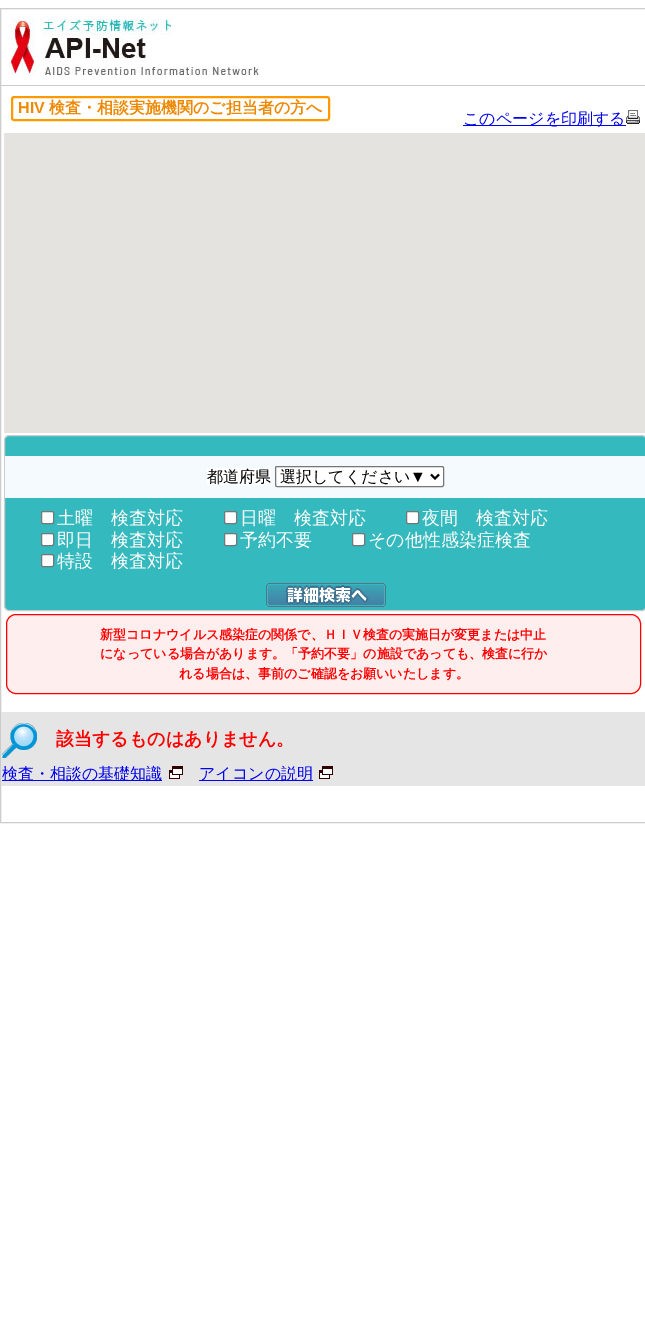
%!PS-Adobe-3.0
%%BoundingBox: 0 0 645 1320
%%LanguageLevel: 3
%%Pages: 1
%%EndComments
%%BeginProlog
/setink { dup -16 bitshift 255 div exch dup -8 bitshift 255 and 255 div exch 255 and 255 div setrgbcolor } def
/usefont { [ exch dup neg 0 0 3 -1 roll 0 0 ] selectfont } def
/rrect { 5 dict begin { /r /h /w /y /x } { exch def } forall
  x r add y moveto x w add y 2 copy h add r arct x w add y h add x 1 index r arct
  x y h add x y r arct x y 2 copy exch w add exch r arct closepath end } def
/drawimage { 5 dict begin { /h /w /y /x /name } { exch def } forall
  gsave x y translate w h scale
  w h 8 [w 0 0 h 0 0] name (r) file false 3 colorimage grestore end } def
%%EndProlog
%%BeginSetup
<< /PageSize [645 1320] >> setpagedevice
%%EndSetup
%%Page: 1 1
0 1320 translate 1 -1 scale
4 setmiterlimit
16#FFFFFF setink
0 0 645 1320 rectfill
16#CCCCCC setink
0.5 8.5 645 814 rectstroke
1 85 644 1 rectfill
(img1.raw) 11 19 248 56 drawimage
16#FF9900 setink
2 setlinewidth
12 97 317 23 2 rrect stroke
/LiberationSans-Bold 16 usefont
16#EE8800 setink
18 113 moveto (HIV) show
/WenQuanYiZenHei-Bold 16 usefont
49 113 moveto (検査・相談実施機関のご担当者の方へ) show
16#0000EE setink
463 125 163 1 rectfill
/WenQuanYiZenHei-Medium 16 usefont
463 124 moveto (このページを印刷する) show
(img2.raw) 626 110 14 14 drawimage
16#E5E3DF setink
4 133 641 300 rectfill
16#34B9BE setink
4.5 435.5 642 175 4.5 rrect gsave fill grestore
16#CCCCCC setink
1 setlinewidth
stroke
16#F5FAFE setink
5 456 640 42 rectfill
16#FFFFFF setink
207 468 64 17 rectfill
16#000000 setink
207 482 moveto (都道府県) show
16#FFFFFF setink
275.5 466.5 168 20 1.5 rrect gsave fill grestore
16#767676 setink
stroke
16#000000 setink
2 setlinewidth
431 474.5 moveto 435 478.5 lineto 439 474.5 lineto stroke
280 482 moveto (選択してください) show
/LiberationSans-Regular 16 usefont
410 482 moveto (▼) show
16#FFFFFF setink
41.5 511.5 12 12 1.5 rrect gsave fill grestore
16#767676 setink
1 setlinewidth
stroke
/WenQuanYiZenHei-Medium 18 usefont
16#FFFFFF setink
57 524 moveto (土曜　検査対応) show
224.5 511.5 12 12 1.5 rrect gsave fill grestore
16#767676 setink
stroke
16#FFFFFF setink
240 524 moveto (日曜　検査対応) show
406.5 511.5 12 12 1.5 rrect gsave fill grestore
16#767676 setink
stroke
16#FFFFFF setink
422 524 moveto (夜間　検査対応) show
41.5 533.5 12 12 1.5 rrect gsave fill grestore
16#767676 setink
stroke
16#FFFFFF setink
57 546 moveto (即日　検査対応) show
224.5 533.5 12 12 1.5 rrect gsave fill grestore
16#767676 setink
stroke
16#FFFFFF setink
240 546 moveto (予約不要) show
352.5 533.5 12 12 1.5 rrect gsave fill grestore
16#767676 setink
stroke
16#FFFFFF setink
368 546 moveto (その他性感染症検査) show
41.5 554.5 12 12 1.5 rrect gsave fill grestore
16#767676 setink
stroke
16#FFFFFF setink
57 567 moveto (特設　検査対応) show
(img3.raw) 266 583 120 24 drawimage
16#FFEEEE setink
6.5 614.5 634 79 9.5 rrect gsave fill grestore
16#FF0000 setink
stroke
/WenQuanYiZenHei-Bold 13 usefont
[
    [(新型コロナウイルス感染症の関係で、ＨＩＶ検査の実施日が変更または中止) 100 639]
    [(になっている場合があります。「予約不要」の施設であっても、検査に行か) 100 658]
    [(れる場合は、事前のご確認をお願いいたします。) 179 678]
] { aload pop moveto show } forall
16#E5E5E5 setink
1 712 644 74 rectfill
(img4.raw) 2 723 35 35 drawimage
/WenQuanYiZenHei-Bold 18 usefont
16#FF0000 setink
56 745 moveto (該当するものはありません。) show
16#0000EE setink
2 780 160 1 rectfill
/WenQuanYiZenHei-Medium 16 usefont
2 779 moveto (検査・相談の基礎知識) show
(img5.raw) 169 766 14 13 drawimage
199 780 114 1 rectfill
199 779 moveto (アイコンの説明) show
(img5.raw) 319 766 14 13 drawimage
showpage
%%EOF
